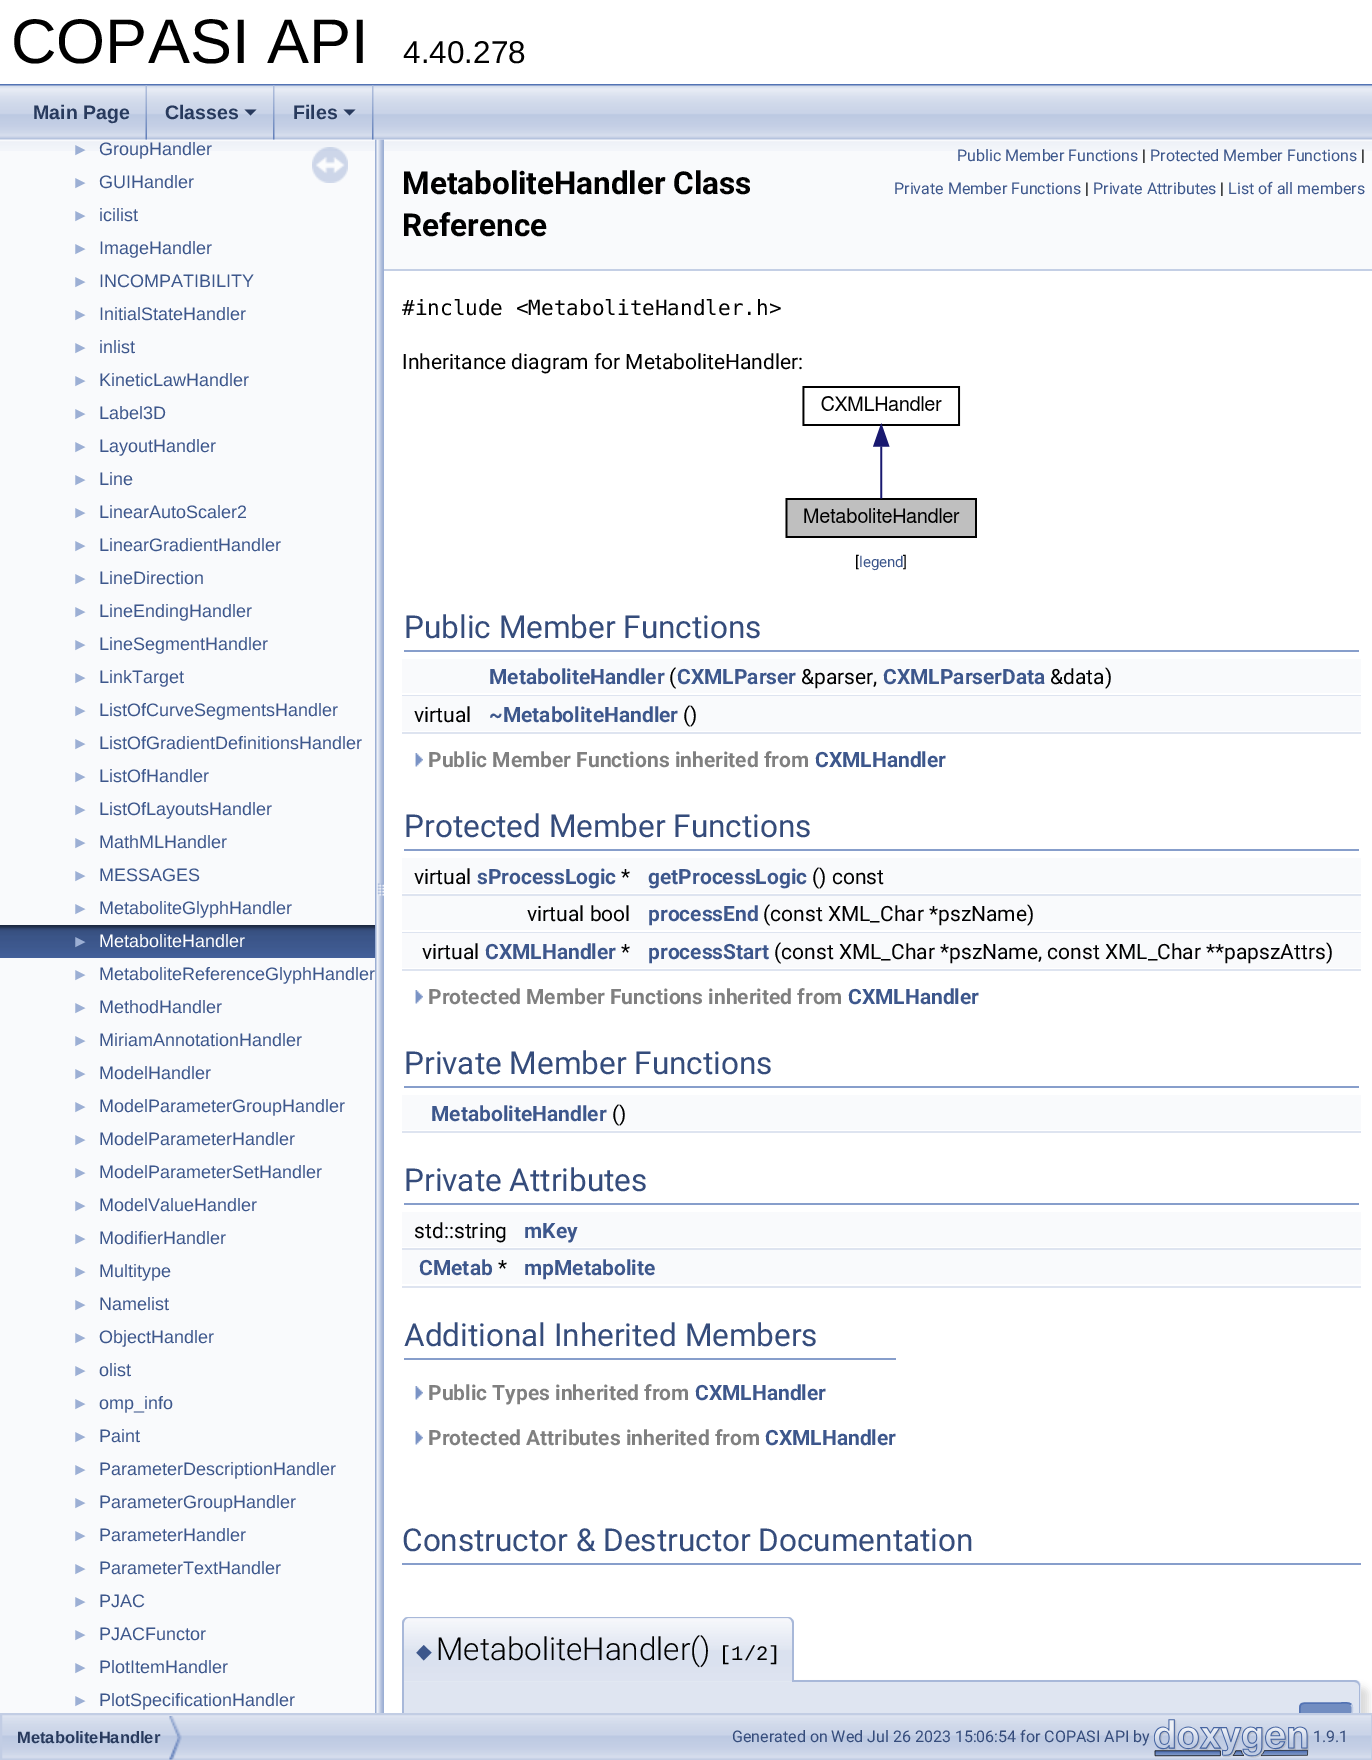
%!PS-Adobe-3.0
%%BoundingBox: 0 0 1372 1760
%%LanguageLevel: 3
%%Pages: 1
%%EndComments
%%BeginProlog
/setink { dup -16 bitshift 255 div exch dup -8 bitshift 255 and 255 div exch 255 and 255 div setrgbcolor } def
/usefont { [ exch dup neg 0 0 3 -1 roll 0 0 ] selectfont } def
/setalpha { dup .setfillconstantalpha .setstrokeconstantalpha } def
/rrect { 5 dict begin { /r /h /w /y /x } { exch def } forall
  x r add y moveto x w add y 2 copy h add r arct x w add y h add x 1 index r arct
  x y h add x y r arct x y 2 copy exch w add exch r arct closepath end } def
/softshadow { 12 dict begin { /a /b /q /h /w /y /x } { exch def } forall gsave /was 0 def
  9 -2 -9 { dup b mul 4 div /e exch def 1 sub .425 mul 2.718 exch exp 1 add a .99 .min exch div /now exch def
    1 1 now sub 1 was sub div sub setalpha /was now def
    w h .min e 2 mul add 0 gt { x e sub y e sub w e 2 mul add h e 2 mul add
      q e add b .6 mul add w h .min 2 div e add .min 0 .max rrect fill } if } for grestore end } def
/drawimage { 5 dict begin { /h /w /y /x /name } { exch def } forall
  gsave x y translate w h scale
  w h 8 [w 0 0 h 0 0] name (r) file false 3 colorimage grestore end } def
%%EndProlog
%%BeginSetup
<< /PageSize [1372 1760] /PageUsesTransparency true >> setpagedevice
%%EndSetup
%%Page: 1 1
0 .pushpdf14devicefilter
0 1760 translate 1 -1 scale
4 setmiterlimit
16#FFFFFF setink
0 0 1372 1760 rectfill
16#5373B4 setink
0 84 1372 2 rectfill
/LiberationSans-Regular 63 usefont
16#000000 setink
11 63 moveto (COPASI API) show
/LiberationSans-Regular 31.5 usefont
403 63 moveto (4.40.278) show
(img7.raw) 375 139 9 1574 drawimage
(img1.raw) 0 85 1372 55 drawimage
(img2.raw) 145 85 2 55 drawimage
/LiberationSans-Bold 19.5 usefont
16#283A5D setink
33 119 moveto (Main Page) show
(img3.raw) 273 85 2 55 drawimage
165 119 moveto (Classes) show
244.5 109.5 moveto 256.5 109.5 lineto 250.5 115.5 lineto closepath fill
(img3.raw) 372 85 2 55 drawimage
293 119 moveto (Files) show
343.5 109.5 moveto 355.5 109.5 lineto 349.5 115.5 lineto closepath fill
16#F9FAFC setink
0 140 375 1573 rectfill
(img4.raw) 0 141 375 10 drawimage
/LiberationSans-Regular 17 usefont
16#9CAFD4 setink
72 155 moveto (►) show
/LiberationSans-Regular 18 usefont
16#3D578C setink
99 155 moveto (GroupHandler) show
/LiberationSans-Regular 17 usefont
16#9CAFD4 setink
72 188 moveto (►) show
/LiberationSans-Regular 18 usefont
16#3D578C setink
99 188 moveto (GUIHandler) show
/LiberationSans-Regular 17 usefont
16#9CAFD4 setink
72 221 moveto (►) show
/LiberationSans-Regular 18 usefont
16#3D578C setink
99 221 moveto (icilist) show
/LiberationSans-Regular 17 usefont
16#9CAFD4 setink
72 254 moveto (►) show
/LiberationSans-Regular 18 usefont
16#3D578C setink
99 254 moveto (ImageHandler) show
/LiberationSans-Regular 17 usefont
16#9CAFD4 setink
72 287 moveto (►) show
/LiberationSans-Regular 18 usefont
16#3D578C setink
99 287 moveto (INCOMPATIBILITY) show
/LiberationSans-Regular 17 usefont
16#9CAFD4 setink
72 320 moveto (►) show
/LiberationSans-Regular 18 usefont
16#3D578C setink
99 320 moveto (InitialStateHandler) show
/LiberationSans-Regular 17 usefont
16#9CAFD4 setink
72 353 moveto (►) show
/LiberationSans-Regular 18 usefont
16#3D578C setink
99 353 moveto (inlist) show
/LiberationSans-Regular 17 usefont
16#9CAFD4 setink
72 386 moveto (►) show
/LiberationSans-Regular 18 usefont
16#3D578C setink
99 386 moveto (KineticLawHandler) show
/LiberationSans-Regular 17 usefont
16#9CAFD4 setink
72 419 moveto (►) show
/LiberationSans-Regular 18 usefont
16#3D578C setink
99 419 moveto (Label3D) show
/LiberationSans-Regular 17 usefont
16#9CAFD4 setink
72 452 moveto (►) show
/LiberationSans-Regular 18 usefont
16#3D578C setink
99 452 moveto (LayoutHandler) show
/LiberationSans-Regular 17 usefont
16#9CAFD4 setink
72 485 moveto (►) show
/LiberationSans-Regular 18 usefont
16#3D578C setink
99 485 moveto (Line) show
/LiberationSans-Regular 17 usefont
16#9CAFD4 setink
72 518 moveto (►) show
/LiberationSans-Regular 18 usefont
16#3D578C setink
99 518 moveto (LinearAutoScaler2) show
/LiberationSans-Regular 17 usefont
16#9CAFD4 setink
72 551 moveto (►) show
/LiberationSans-Regular 18 usefont
16#3D578C setink
99 551 moveto (LinearGradientHandler) show
/LiberationSans-Regular 17 usefont
16#9CAFD4 setink
72 584 moveto (►) show
/LiberationSans-Regular 18 usefont
16#3D578C setink
99 584 moveto (LineDirection) show
/LiberationSans-Regular 17 usefont
16#9CAFD4 setink
72 617 moveto (►) show
/LiberationSans-Regular 18 usefont
16#3D578C setink
99 617 moveto (LineEndingHandler) show
/LiberationSans-Regular 17 usefont
16#9CAFD4 setink
72 650 moveto (►) show
/LiberationSans-Regular 18 usefont
16#3D578C setink
99 650 moveto (LineSegmentHandler) show
/LiberationSans-Regular 17 usefont
16#9CAFD4 setink
72 683 moveto (►) show
/LiberationSans-Regular 18 usefont
16#3D578C setink
99 683 moveto (LinkTarget) show
/LiberationSans-Regular 17 usefont
16#9CAFD4 setink
72 716 moveto (►) show
/LiberationSans-Regular 18 usefont
16#3D578C setink
99 716 moveto (ListOfCurveSegmentsHandler) show
/LiberationSans-Regular 17 usefont
16#9CAFD4 setink
72 749 moveto (►) show
/LiberationSans-Regular 18 usefont
16#3D578C setink
99 749 moveto (ListOfGradientDefinitionsHandler) show
/LiberationSans-Regular 17 usefont
16#9CAFD4 setink
72 782 moveto (►) show
/LiberationSans-Regular 18 usefont
16#3D578C setink
99 782 moveto (ListOfHandler) show
/LiberationSans-Regular 17 usefont
16#9CAFD4 setink
72 815 moveto (►) show
/LiberationSans-Regular 18 usefont
16#3D578C setink
99 815 moveto (ListOfLayoutsHandler) show
/LiberationSans-Regular 17 usefont
16#9CAFD4 setink
72 848 moveto (►) show
/LiberationSans-Regular 18 usefont
16#3D578C setink
99 848 moveto (MathMLHandler) show
/LiberationSans-Regular 17 usefont
16#9CAFD4 setink
72 881 moveto (►) show
/LiberationSans-Regular 18 usefont
16#3D578C setink
99 881 moveto (MESSAGES) show
/LiberationSans-Regular 17 usefont
16#9CAFD4 setink
72 914 moveto (►) show
/LiberationSans-Regular 18 usefont
16#3D578C setink
99 914 moveto (MetaboliteGlyphHandler) show
(img5.raw) 0 925 375 33 drawimage
/LiberationSans-Regular 17 usefont
16#9CAFD4 setink
72 947 moveto (►) show
/LiberationSans-Regular 18 usefont
16#FFFFFF setink
99 947 moveto (MetaboliteHandler) show
/LiberationSans-Regular 17 usefont
16#9CAFD4 setink
72 980 moveto (►) show
/LiberationSans-Regular 18 usefont
16#3D578C setink
99 980 moveto (MetaboliteReferenceGlyphHandler) show
/LiberationSans-Regular 17 usefont
16#9CAFD4 setink
72 1013 moveto (►) show
/LiberationSans-Regular 18 usefont
16#3D578C setink
99 1013 moveto (MethodHandler) show
/LiberationSans-Regular 17 usefont
16#9CAFD4 setink
72 1046 moveto (►) show
/LiberationSans-Regular 18 usefont
16#3D578C setink
99 1046 moveto (MiriamAnnotationHandler) show
/LiberationSans-Regular 17 usefont
16#9CAFD4 setink
72 1079 moveto (►) show
/LiberationSans-Regular 18 usefont
16#3D578C setink
99 1079 moveto (ModelHandler) show
/LiberationSans-Regular 17 usefont
16#9CAFD4 setink
72 1112 moveto (►) show
/LiberationSans-Regular 18 usefont
16#3D578C setink
99 1112 moveto (ModelParameterGroupHandler) show
/LiberationSans-Regular 17 usefont
16#9CAFD4 setink
72 1145 moveto (►) show
/LiberationSans-Regular 18 usefont
16#3D578C setink
99 1145 moveto (ModelParameterHandler) show
/LiberationSans-Regular 17 usefont
16#9CAFD4 setink
72 1178 moveto (►) show
/LiberationSans-Regular 18 usefont
16#3D578C setink
99 1178 moveto (ModelParameterSetHandler) show
/LiberationSans-Regular 17 usefont
16#9CAFD4 setink
72 1211 moveto (►) show
/LiberationSans-Regular 18 usefont
16#3D578C setink
99 1211 moveto (ModelValueHandler) show
/LiberationSans-Regular 17 usefont
16#9CAFD4 setink
72 1244 moveto (►) show
/LiberationSans-Regular 18 usefont
16#3D578C setink
99 1244 moveto (ModifierHandler) show
/LiberationSans-Regular 17 usefont
16#9CAFD4 setink
72 1277 moveto (►) show
/LiberationSans-Regular 18 usefont
16#3D578C setink
99 1277 moveto (Multitype) show
/LiberationSans-Regular 17 usefont
16#9CAFD4 setink
72 1310 moveto (►) show
/LiberationSans-Regular 18 usefont
16#3D578C setink
99 1310 moveto (Namelist) show
/LiberationSans-Regular 17 usefont
16#9CAFD4 setink
72 1343 moveto (►) show
/LiberationSans-Regular 18 usefont
16#3D578C setink
99 1343 moveto (ObjectHandler) show
/LiberationSans-Regular 17 usefont
16#9CAFD4 setink
72 1376 moveto (►) show
/LiberationSans-Regular 18 usefont
16#3D578C setink
99 1376 moveto (olist) show
/LiberationSans-Regular 17 usefont
16#9CAFD4 setink
72 1409 moveto (►) show
/LiberationSans-Regular 18 usefont
16#3D578C setink
99 1409 moveto (omp_info) show
/LiberationSans-Regular 17 usefont
16#9CAFD4 setink
72 1442 moveto (►) show
/LiberationSans-Regular 18 usefont
16#3D578C setink
99 1442 moveto (Paint) show
/LiberationSans-Regular 17 usefont
16#9CAFD4 setink
72 1475 moveto (►) show
/LiberationSans-Regular 18 usefont
16#3D578C setink
99 1475 moveto (ParameterDescriptionHandler) show
/LiberationSans-Regular 17 usefont
16#9CAFD4 setink
72 1508 moveto (►) show
/LiberationSans-Regular 18 usefont
16#3D578C setink
99 1508 moveto (ParameterGroupHandler) show
/LiberationSans-Regular 17 usefont
16#9CAFD4 setink
72 1541 moveto (►) show
/LiberationSans-Regular 18 usefont
16#3D578C setink
99 1541 moveto (ParameterHandler) show
/LiberationSans-Regular 17 usefont
16#9CAFD4 setink
72 1574 moveto (►) show
/LiberationSans-Regular 18 usefont
16#3D578C setink
99 1574 moveto (ParameterTextHandler) show
/LiberationSans-Regular 17 usefont
16#9CAFD4 setink
72 1607 moveto (►) show
/LiberationSans-Regular 18 usefont
16#3D578C setink
99 1607 moveto (PJAC) show
/LiberationSans-Regular 17 usefont
16#9CAFD4 setink
72 1640 moveto (►) show
/LiberationSans-Regular 18 usefont
16#3D578C setink
99 1640 moveto (PJACFunctor) show
/LiberationSans-Regular 17 usefont
16#9CAFD4 setink
72 1673 moveto (►) show
/LiberationSans-Regular 18 usefont
16#3D578C setink
99 1673 moveto (PlotItemHandler) show
/LiberationSans-Regular 17 usefont
16#9CAFD4 setink
72 1706 moveto (►) show
/LiberationSans-Regular 18 usefont
16#3D578C setink
99 1706 moveto (PlotSpecificationHandler) show
(img6.raw) 312 147 36 36 drawimage
16#F9FAFC setink
384 140 988 129 rectfill
(img8.raw) 384 141 988 10 drawimage
16#C4CFE5 setink
384 269 988 2 rectfill
/Roboto-Bold 31.5 usefont
16#000000 setink
402 194 moveto (MetaboliteHandler Class) show
402 236 moveto (Reference) show
/Roboto-Regular 16 usefont
16#3D578C setink
957 161 moveto (Public Member Functions) show
16#000000 setink
1142 161 moveto (|) show
16#3D578C setink
1150 161 moveto (Protected Member Functions) show
16#000000 setink
1361 161 moveto (|) show
16#3D578C setink
894 194 moveto (Private Member Functions) show
16#000000 setink
1085 194 moveto (|) show
16#3D578C setink
1093 194 moveto (Private Attributes) show
16#000000 setink
1220 194 moveto (|) show
16#3D578C setink
1228 194 moveto (List of all members) show
/DejaVuSansMono-Regular 21 usefont
16#000000 setink
402 315 moveto (#include <MetaboliteHandler.h>) show
/Roboto-Regular 21 usefont
402 369 moveto (Inheritance diagram for MetaboliteHandler:) show
(img9.raw) 785 386 192 152 drawimage
/Roboto-Regular 15 usefont
855 567 moveto ([) show
16#3D578C setink
859 567 moveto (legend) show
16#000000 setink
903 567 moveto (]) show
16#879ECB setink
404 650 955 2 rectfill
/Roboto-Regular 31.5 usefont
16#354C7B setink
404 638 moveto (Public Member Functions) show
16#F9FAFC setink
402 659 959 34 rectfill
/Roboto-Bold 21 usefont
16#3D578C setink
489 684 moveto (MetaboliteHandler) show
/Roboto-Regular 21 usefont
16#000000 setink
669 684 moveto (\() show
/Roboto-Bold 21 usefont
16#3D578C setink
677 684 moveto (CXMLParser) show
/Roboto-Regular 21 usefont
16#000000 setink
801 684 moveto (&parser,) show
/Roboto-Bold 21 usefont
16#3D578C setink
883 684 moveto (CXMLParserData) show
/Roboto-Regular 21 usefont
16#000000 setink
1050 684 moveto (&data\)) show
16#DEE4F0 setink
402 695 959 1 rectfill
16#F9FAFC setink
402 696 959 35 rectfill
16#000000 setink
414 722 moveto (virtual) show
/Roboto-Bold 21 usefont
16#3D578C setink
489 722 moveto (~MetaboliteHandler) show
/Roboto-Regular 21 usefont
16#000000 setink
683 722 moveto (\(\)) show
16#DEE4F0 setink
402 732 959 2 rectfill
(img10.raw) 415 753 8 14 drawimage
/Roboto-Bold 21 usefont
16#808080 setink
428 767 moveto (Public Member Functions inherited from) show
16#3D578C setink
815 767 moveto (CXMLHandler) show
16#879ECB setink
404 849 955 2 rectfill
/Roboto-Regular 31.5 usefont
16#354C7B setink
404 837 moveto (Protected Member Functions) show
16#F9FAFC setink
402 858 959 35 rectfill
/Roboto-Regular 21 usefont
16#000000 setink
414 884 moveto (virtual) show
/Roboto-Bold 21 usefont
16#3D578C setink
477 884 moveto (sProcessLogic) show
/Roboto-Regular 21 usefont
16#000000 setink
621 884 moveto (*) show
/Roboto-Bold 21 usefont
16#3D578C setink
648 884 moveto (getProcessLogic) show
/Roboto-Regular 21 usefont
16#000000 setink
812 884 moveto (\(\) const) show
16#DEE4F0 setink
402 894 959 2 rectfill
16#F9FAFC setink
402 896 959 34 rectfill
16#000000 setink
527 921 moveto (virtual bool) show
/Roboto-Bold 21 usefont
16#3D578C setink
648 921 moveto (processEnd) show
/Roboto-Regular 21 usefont
16#000000 setink
763 921 moveto (\(const XML_Char *pszName\)) show
16#DEE4F0 setink
402 932 959 1 rectfill
16#F9FAFC setink
402 933 959 35 rectfill
16#000000 setink
422 959 moveto (virtual) show
/Roboto-Bold 21 usefont
16#3D578C setink
485 959 moveto (CXMLHandler) show
/Roboto-Regular 21 usefont
16#000000 setink
621 959 moveto (*) show
/Roboto-Bold 21 usefont
16#3D578C setink
648 959 moveto (processStart) show
/Roboto-Regular 21 usefont
16#000000 setink
774 959 moveto (\(const XML_Char *pszName, const XML_Char **papszAttrs\)) show
16#DEE4F0 setink
402 969 959 2 rectfill
(img10.raw) 415 990 8 14 drawimage
/Roboto-Bold 21 usefont
16#808080 setink
428 1004 moveto (Protected Member Functions inherited from) show
16#3D578C setink
848 1004 moveto (CXMLHandler) show
16#879ECB setink
404 1086 955 2 rectfill
/Roboto-Regular 31.5 usefont
16#354C7B setink
404 1074 moveto (Private Member Functions) show
16#F9FAFC setink
402 1095 959 35 rectfill
/Roboto-Bold 21 usefont
16#3D578C setink
431 1121 moveto (MetaboliteHandler) show
/Roboto-Regular 21 usefont
16#000000 setink
612 1121 moveto (\(\)) show
16#DEE4F0 setink
402 1131 959 2 rectfill
16#879ECB setink
404 1203 955 2 rectfill
/Roboto-Regular 31.5 usefont
16#354C7B setink
404 1191 moveto (Private Attributes) show
16#F9FAFC setink
402 1212 959 35 rectfill
/Roboto-Regular 21 usefont
16#000000 setink
414 1238 moveto (std::string) show
/Roboto-Bold 21 usefont
16#3D578C setink
524 1238 moveto (mKey) show
16#DEE4F0 setink
402 1248 959 2 rectfill
16#F9FAFC setink
402 1250 959 34 rectfill
16#3D578C setink
419 1275 moveto (CMetab) show
/Roboto-Regular 21 usefont
16#000000 setink
498 1275 moveto (*) show
/Roboto-Bold 21 usefont
16#3D578C setink
524 1275 moveto (mpMetabolite) show
16#DEE4F0 setink
402 1286 959 2 rectfill
16#879ECB setink
404 1358 492 2 rectfill
/Roboto-Regular 31.5 usefont
16#354C7B setink
404 1346 moveto (Additional Inherited Members) show
(img10.raw) 415 1386 8 14 drawimage
/Roboto-Bold 21 usefont
16#808080 setink
428 1400 moveto (Public Types inherited from) show
16#3D578C setink
695 1400 moveto (CXMLHandler) show
(img10.raw) 415 1431 8 14 drawimage
16#808080 setink
428 1445 moveto (Protected Attributes inherited from) show
16#3D578C setink
765 1445 moveto (CXMLHandler) show
16#879ECB setink
402 1563 959 2 rectfill
/Roboto-Regular 31.5 usefont
16#354C7B setink
402 1551 moveto (Constructor & Destructor Documentation) show
16#000000 setink
410 1688 958 61 6 4 0.15 softshadow
16#DFE5F1 setink
402 1680 moveto 1355 1680 lineto 1358.5 1680 1361 1682.5 1361 1686 curveto 1361 1713 lineto 402 1713 lineto closepath fill
16#A8B8D9 setink
402 1680 moveto 1354 1680 lineto 1358 1680 1360 1683 1360 1686 curveto 1360 1742 lineto 402 1742 lineto closepath 404 1682 moveto 1354 1682 lineto 1357 1682 1359 1684 1359 1686 curveto 1359 1742 lineto 404 1742 lineto closepath eofill
16#E2E8F2 setink
408 1617 moveto 788 1617 lineto 791.5 1617 794 1619.5 794 1623 curveto 794 1682 lineto 402 1682 lineto 402 1623 lineto 402 1619.5 404.5 1617 408 1617 curveto closepath fill
(img11.raw) 402 1618 392 63 drawimage
16#A8B8D9 setink
408 1617 moveto 788 1617 lineto 791 1617 794 1620 794 1623 curveto 794 1682 lineto 402 1682 lineto 402 1623 lineto 402 1620 405 1617 408 1617 curveto closepath 408 1618 moveto 788 1618 lineto 790 1618 792 1621 792 1623 curveto 792 1682 lineto 404 1682 lineto 404 1623 lineto 404 1621 406 1618 408 1618 curveto closepath eofill
/DejaVuSans-Regular 20.5 usefont
16#3D578C setink
416 1658 moveto (◆) show
/Roboto-Light 31.5 usefont
16#000000 setink
436 1660 moveto (MetaboliteHandler\(\)) show
/LiberationMono-Regular 20.5 usefont
719 1660 moveto ([1/2]) show
16#728DC1 setink
1304 1703 moveto 1348 1703 lineto 1351 1703 1353 1705 1353 1708 curveto 1353 1713 lineto 1299 1713 lineto 1299 1708 lineto 1299 1705 1301 1703 1304 1703 curveto closepath fill
16#C4CFE5 setink
1.5 setlinewidth
1351 1704.5 moveto 1353.5 1706.5 1352 1712.5 1352 1715 curveto 1352 1727.5 1353.5 1727 1341 1727 curveto 1311 1727 lineto 1309.5 1727 1303 1728.5 1301 1726 curveto stroke
16#5373B4 setink
1301 1726 moveto 1298.5 1724 1300 1718 1300 1715 curveto 1300 1703 1298.5 1703 1311 1703 curveto 1341 1703 lineto 1342.5 1703 1349 1702 1351 1704.5 curveto stroke
(img12.raw) 2 1715 1369 44 drawimage
16#C2CDE4 setink
2 setlinewidth
1 1714 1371 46 rectstroke
(img13.raw) 169 1716 13 44 drawimage
/LiberationSans-Bold 16.5 usefont
16#283A5D setink
17 1743 moveto (MetaboliteHandler) show
/Roboto-Regular 16 usefont
16#354C7B setink
732 1742 moveto (Generated on Wed Jul 26 2023 15:06:54 for COPASI API by) show
(img14.raw) 1154 1719 155 39 drawimage
1313 1742 moveto (1.9.1) show
.poppdf14devicefilter showpage
%%EOF
